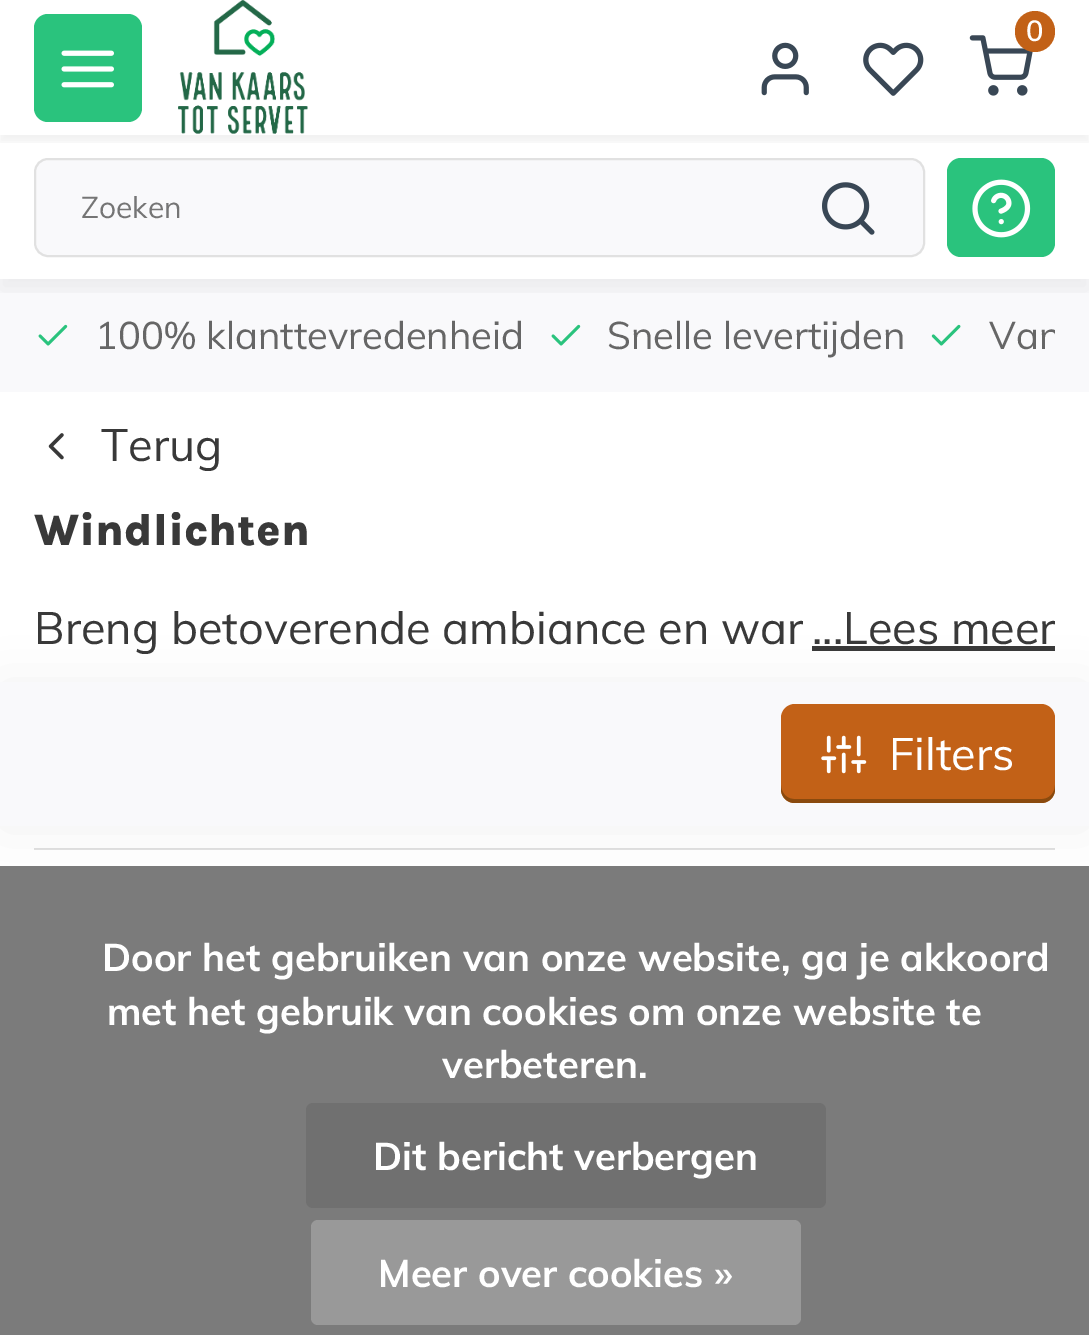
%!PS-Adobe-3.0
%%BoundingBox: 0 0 1089 1335
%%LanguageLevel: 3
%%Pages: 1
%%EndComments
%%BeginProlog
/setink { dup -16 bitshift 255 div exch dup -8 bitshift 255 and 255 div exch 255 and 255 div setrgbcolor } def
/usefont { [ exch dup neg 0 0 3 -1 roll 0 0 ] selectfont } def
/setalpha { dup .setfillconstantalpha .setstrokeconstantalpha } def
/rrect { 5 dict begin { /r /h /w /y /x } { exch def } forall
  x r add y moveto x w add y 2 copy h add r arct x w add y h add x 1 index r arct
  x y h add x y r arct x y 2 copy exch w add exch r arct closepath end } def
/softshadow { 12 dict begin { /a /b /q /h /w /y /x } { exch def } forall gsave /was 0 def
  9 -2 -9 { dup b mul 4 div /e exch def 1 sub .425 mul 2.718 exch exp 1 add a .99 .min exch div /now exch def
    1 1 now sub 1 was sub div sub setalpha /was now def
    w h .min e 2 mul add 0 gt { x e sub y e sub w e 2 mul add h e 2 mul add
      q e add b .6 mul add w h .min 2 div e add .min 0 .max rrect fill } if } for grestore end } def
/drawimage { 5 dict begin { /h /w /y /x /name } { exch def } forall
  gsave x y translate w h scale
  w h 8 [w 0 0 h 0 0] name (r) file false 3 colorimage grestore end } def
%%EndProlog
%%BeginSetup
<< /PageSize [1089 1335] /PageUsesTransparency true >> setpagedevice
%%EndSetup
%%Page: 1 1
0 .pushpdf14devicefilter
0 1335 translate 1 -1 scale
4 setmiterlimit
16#FFFFFF setink
0 0 1089 1335 rectfill
16#F9F9FB setink
0 279 1089 113 rectfill
gsave
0 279 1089 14 rectclip
16#000000 setink
0 11 1089 279 0 11 0.05 softshadow
grestore
gsave
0 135 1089 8 rectclip
16#000000 setink
0 7 1089 135 0 4.5 0.05 softshadow
grestore
16#2AC37D setink
34 14 108 108 14 rrect fill
(img1.raw) 61 50 53 38 drawimage
(img2.raw) 178 0 130 134 drawimage
(img3.raw) 969 35 64 61 drawimage
16#C26117 setink
1015 11 40 41 20 rrect fill
/Muli-SemiBold 29 usefont
16#FFFFFF setink
1026 41 moveto (0) show
(img4.raw) 761 42 48 54 drawimage
(img5.raw) 863 42 61 54 drawimage
16#F9F9FB setink
35 159 889 97 13 rrect gsave fill grestore
16#E1E1E1 setink
2 setlinewidth
stroke
/Muli-Regular 30 usefont
16#757575 setink
81 218 moveto (Zoeken) show
(img6.raw) 822 182 53 53 drawimage
16#2AC37D setink
947 158 108 99 14 rrect fill
(img7.raw) 972 179 59 59 drawimage
(img8.raw) 38 324 30 22 drawimage
/Muli-Regular 38.25 usefont
16#666666 setink
95 349 moveto (100% klanttevredenheid) show
(img8.raw) 551 324 30 22 drawimage
607 349 moveto (Snelle levertijden) show
(img9.raw) 931 324 30 22 drawimage
gsave
34 279 1021 113 rectclip
989 349 moveto (Van) show
grestore
(img10.raw) 48 433 16 27 drawimage
/Muli-Regular 45 usefont
16#393939 setink
101 461 moveto (Terug) show
/Karla-ExtraBold 45 usefont
34 545 moveto (Windlichten) show
/Muli-Regular 45 usefont
34 644 moveto (Breng betoverende ambiance en war) show
812 644 moveto (...Lees meer) show
812 646 243 5 rectfill
16#E1E1E1 setink
34 848 1021 2 rectfill
16#000000 setink
0 684 1089 144 0 28 0.05 softshadow
16#F9F9FB setink
0 682 1089 144 rectfill
16#C26117 setink
781 704 274 99 14 rrect fill
16#8A4A0E setink
781 785 moveto 781 789 lineto 781 797 787 803 795 803 curveto 1041 803 lineto 1049 803 1055 797 1055 789 curveto 1055 785 lineto 1055 793 1049 799 1042 799 curveto 794 799 lineto 787 799 781 793 781 785 curveto closepath fill
(img11.raw) 821 735 46 39 drawimage
16#FFFFFF setink
889 770 moveto (Filters) show
0.85 setalpha
16#646464 setink
0 866 1089 469 rectfill
/Muli-Bold 38.25 usefont
1 setalpha
16#FFFFFF setink
[
    [(Door het gebruiken van onze website, ga je akkoord) 102 971]
    [(met het gebruik van cookies om onze website te) 107 1025]
    [(verbeteren.) 442 1078]
] { aload pop moveto show } forall
16#707070 setink
306 1103 520 105 7 rrect fill
16#FFFFFF setink
373 1170 moveto (Dit bericht verbergen) show
16#999999 setink
311 1220 490 105 7 rrect fill
16#FFFFFF setink
378 1287 moveto (Meer over cookies ») show
.poppdf14devicefilter showpage
%%EOF
